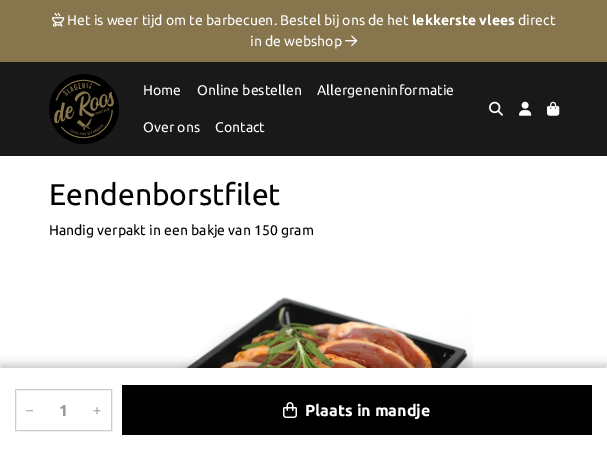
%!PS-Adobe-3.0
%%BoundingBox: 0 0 607 452
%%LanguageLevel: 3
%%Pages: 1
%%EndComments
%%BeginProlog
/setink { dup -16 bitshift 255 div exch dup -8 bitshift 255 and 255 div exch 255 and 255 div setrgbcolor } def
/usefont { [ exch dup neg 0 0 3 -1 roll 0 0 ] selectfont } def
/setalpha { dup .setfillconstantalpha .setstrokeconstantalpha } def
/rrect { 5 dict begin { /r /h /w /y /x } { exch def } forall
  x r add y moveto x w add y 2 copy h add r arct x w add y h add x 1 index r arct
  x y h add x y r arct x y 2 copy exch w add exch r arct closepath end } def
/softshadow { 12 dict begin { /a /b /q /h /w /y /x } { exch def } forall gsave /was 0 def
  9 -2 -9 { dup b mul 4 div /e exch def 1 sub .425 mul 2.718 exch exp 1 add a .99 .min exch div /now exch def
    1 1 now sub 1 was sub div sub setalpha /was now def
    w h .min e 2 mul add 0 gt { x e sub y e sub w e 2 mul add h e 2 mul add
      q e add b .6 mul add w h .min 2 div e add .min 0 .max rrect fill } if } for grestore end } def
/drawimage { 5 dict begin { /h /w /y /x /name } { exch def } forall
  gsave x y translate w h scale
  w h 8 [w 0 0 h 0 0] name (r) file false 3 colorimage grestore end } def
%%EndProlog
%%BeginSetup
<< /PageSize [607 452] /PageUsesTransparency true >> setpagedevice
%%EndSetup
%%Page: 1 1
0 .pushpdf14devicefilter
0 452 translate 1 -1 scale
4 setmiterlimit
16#FFFFFF setink
0 0 607 452 rectfill
16#86754D setink
0 0 607 62 rectfill
(img1.raw) 52 12 13 15 drawimage
/Ubuntu-Regular 14 usefont
16#FFFFFF setink
67 25 moveto (Het is weer tijd om te barbecuen. Bestel bij ons de het) show
/Ubuntu-Bold 14 usefont
412 25 moveto (lekkerste vlees) show
/Ubuntu-Regular 14 usefont
518 25 moveto (direct) show
250 46 moveto (in de webshop) show
(img2.raw) 345 35 13 11 drawimage
16#191919 setink
0 62 607 94 rectfill
(img3.raw) 49 74 70 70 drawimage
16#FFFFFF setink
[
    [(Home) 143 95]
    [(Online bestellen) 197 95]
    [(Allergeneninformatie) 317 95]
    [(Over ons) 143 132]
    [(Contact) 215 132]
] { aload pop moveto show } forall
(img4.raw) 489 101 14 15 drawimage
(img5.raw) 519 101 13 15 drawimage
(img6.raw) 547 101 13 15 drawimage
/Ubuntu-Regular 30 usefont
16#000000 setink
49 205 moveto (Eendenborstfilet) show
/Ubuntu-Regular 14 usefont
49 235 moveto (Handig verpakt in een bakje van 150 gram) show
(img8.raw) 135 297 338 71 drawimage
0 364 607 84 0 4 0.2 softshadow
16#FFFFFF setink
0 368 607 84 rectfill
16#CCCCCC setink
15.5 389.5 96 41 rectstroke
16#999999 setink
26 415 moveto (–) show
/Ubuntu-Bold 16 usefont
59 416 moveto (1) show
/Ubuntu-Regular 14 usefont
93 415 moveto (+) show
16#000000 setink
122 385 470 50 rectfill
(img7.raw) 283 402 14 16 drawimage
/Ubuntu-Bold 16 usefont
16#FFFFFF setink
305 416 moveto (Plaats in mandje) show
.poppdf14devicefilter showpage
%%EOF
